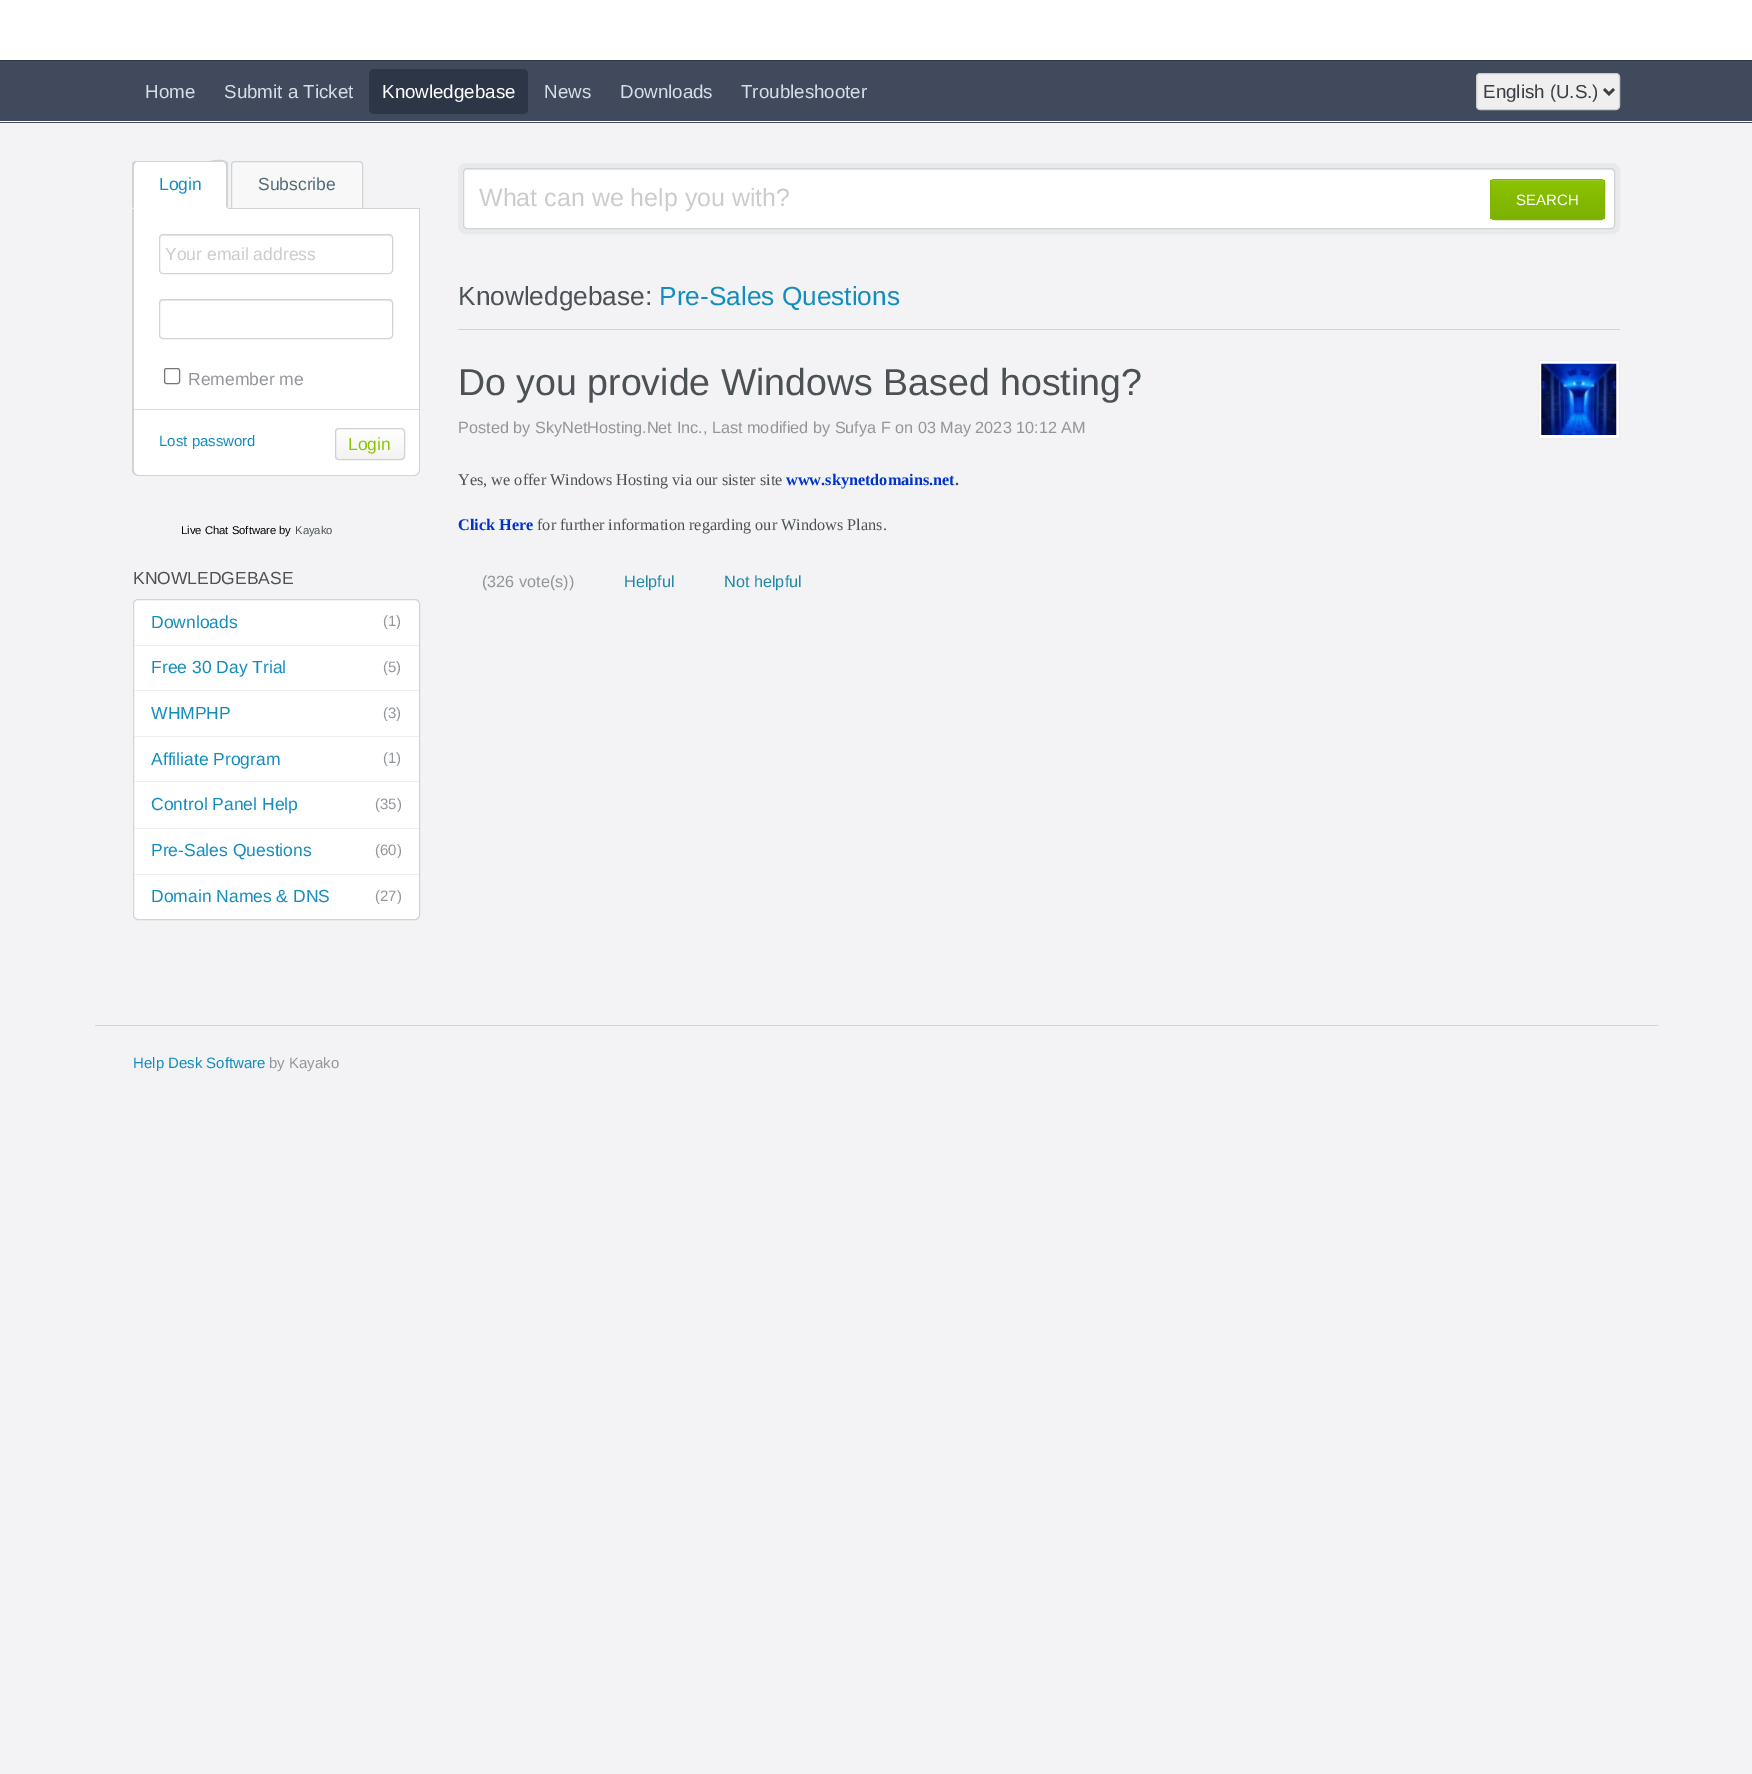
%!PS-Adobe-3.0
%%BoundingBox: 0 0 1752 1774
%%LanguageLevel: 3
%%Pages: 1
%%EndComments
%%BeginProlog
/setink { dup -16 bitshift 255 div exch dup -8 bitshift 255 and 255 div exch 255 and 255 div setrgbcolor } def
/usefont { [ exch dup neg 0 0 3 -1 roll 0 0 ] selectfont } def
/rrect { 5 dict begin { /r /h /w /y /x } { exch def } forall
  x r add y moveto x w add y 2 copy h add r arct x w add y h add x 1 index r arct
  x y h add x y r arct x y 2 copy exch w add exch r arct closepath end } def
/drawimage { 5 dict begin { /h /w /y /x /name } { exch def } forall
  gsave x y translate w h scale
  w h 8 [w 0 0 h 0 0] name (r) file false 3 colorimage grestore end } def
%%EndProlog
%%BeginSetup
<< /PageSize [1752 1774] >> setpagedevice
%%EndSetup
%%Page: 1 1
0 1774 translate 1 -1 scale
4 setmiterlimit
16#F3F3F5 setink
0 0 1752 1774 rectfill
[
    [0 0 1752 60 16#FFFFFF]
    [0 61 1752 62 16#414A5C]
    [0 60 1752 1 16#2D3646]
    [0 121 1752 1 16#FFFFFF]
] { aload pop setink rectfill } forall
/LiberationSans-Regular 18.75 usefont
16#D4DEE7 setink
145 98 moveto (Home) show
224 98 moveto (Submit a Ticket) show
16#2D3646 setink
369 69 159 45 5 rrect fill
16#FFFFFF setink
382 98 moveto (Knowledgebase) show
16#D4DEE7 setink
[
    [(News) 544 98]
    [(Downloads) 620 98]
    [(Troubleshooter) 741 98]
] { aload pop moveto show } forall
16#EFEFEF setink
1476.5 73.5 143 36 3.5 rrect gsave fill grestore
16#CCCCCC setink
stroke
16#3C3E43 setink
2.5 setlinewidth
1604 89 moveto 1609 94 lineto 1614 89 lineto stroke
1483 98 moveto (English \(U.S.\)) show
16#CFD4D6 setink
228 208 192 1 rectfill
16#FFFFFF setink
137 161 moveto 224 161 lineto 226 161 228 163 228 165 curveto 228 209 lineto 133 209 lineto 133 165 lineto 133 163 135 161 137 161 curveto closepath fill
16#CFD4D6 setink
136 162 moveto 135 163 lineto 133 162 lineto 135 161 lineto 210 161 lineto 210 161 223 158 227 162 curveto 225 163 lineto 224 162 lineto closepath fill
227 162 moveto 228 163 lineto 228 209 lineto 226 207 lineto 226 165 lineto 225 163 lineto closepath fill
16#FFFFFF setink
228 209 moveto 226 207 lineto 226 208 lineto 134 208 lineto 134 207 lineto 132 209 lineto closepath fill
16#CFD4D6 setink
132 209 moveto 132 163 lineto 133 162 lineto 135 163 lineto 134 165 lineto 134 207 lineto closepath fill
/LiberationSans-Regular 17.5 usefont
16#128DBE setink
159 190 moveto (Login) show
16#F8F8F8 setink
235 161.5 moveto 359 161.5 lineto 361 161.5 362.5 163 362.5 165 curveto 362.5 208.5 lineto 231.5 208.5 lineto 231.5 165 lineto 231.5 163 233 161.5 235 161.5 curveto closepath gsave fill grestore
16#CFD4D6 setink
1 setlinewidth
stroke
16#506C74 setink
258 190 moveto (Subscribe) show
16#FFFFFF setink
134 209 moveto 419 209 lineto 419 470 lineto 419 473 417 475 414 475 curveto 139 475 lineto 136 475 134 473 134 470 curveto closepath fill
16#CFD4D6 setink
132 209 moveto 420 209 lineto 420 470 lineto 420 473 417 476 414 476 curveto 139 476 lineto 135 476 132 473 132 470 curveto closepath 134 209 moveto 419 209 lineto 419 470 lineto 419 473 417 475 414 475 curveto 139 475 lineto 136 475 134 473 134 470 curveto closepath eofill
16#ECECEC setink
162 236 moveto 389 236 lineto 390 236 391 237 391 239 curveto 391 237 391 235 388 235 curveto 162 235 lineto 160 235 160 237 160 239 curveto 160 237 161 236 162 236 curveto closepath fill
16#CFD4D6 setink
159.5 234.5 233 39 3.5 rrect stroke
16#CCCCCC setink
165 260 moveto (Your email address) show
16#ECECEC setink
162 301 moveto 389 301 lineto 390 301 391 302 391 304 curveto 391 302 391 300 388 300 curveto 162 300 lineto 160 300 160 302 160 304 curveto 160 302 161 301 162 301 curveto closepath fill
16#CFD4D6 setink
159.5 299.5 233 39 3.5 rrect stroke
16#767676 setink
164.5 368.5 15 15 2 rrect stroke
16#92969B setink
188 385 moveto (Remember me) show
16#D8DBDF setink
134 409 285 1 rectfill
/LiberationSans-Regular 15 usefont
16#128DBE setink
159 446 moveto (Lost password) show
gsave
335 428 70 32 4 rrect clip newpath
gsave 335 429 moveto 405 429 lineto 405 459 lineto 335 459 lineto closepath clip newpath
<< /ShadingType 2 /ColorSpace /DeviceRGB /Coords [336 429 336 459] /Extend [true true] /Function << /FunctionType 2 /Domain [0 1] /C0 [1 1 1] /C1 [0.953 0.953 0.953] /N 1 >> >> shfill grestore
grestore
16#CDD2D4 setink
335.5 428.5 69 31 3.5 rrect stroke
/LiberationSans-Regular 17.5 usefont
16#8AC500 setink
348 450 moveto (Login) show
/LiberationSans-Regular 11.25 usefont
16#000000 setink
181 534 moveto (Live Chat Software by) show
16#4C5156 setink
295 534 moveto (Kayako) show
/LiberationSans-Regular 17.5 usefont
133 584 moveto (KNOWLEDGEBASE) show
16#FFFFFF setink
133.5 599.5 286 320 4.5 rrect gsave fill grestore
16#CFD4D6 setink
stroke
16#EEEEEE setink
134 645 285 1 rectfill
16#128DBE setink
151 628 moveto (Downloads) show
/LiberationSans-Regular 15 usefont
16#92969B setink
383 626 moveto (\(1\)) show
16#EEEEEE setink
134 690 285 1 rectfill
/LiberationSans-Regular 17.5 usefont
16#128DBE setink
151 673 moveto (Free 30 Day Trial) show
/LiberationSans-Regular 15 usefont
16#92969B setink
383 672 moveto (\(5\)) show
16#EEEEEE setink
134 736 285 1 rectfill
/LiberationSans-Regular 17.5 usefont
16#128DBE setink
151 719 moveto (WHMPHP) show
/LiberationSans-Regular 15 usefont
16#92969B setink
383 718 moveto (\(3\)) show
16#EEEEEE setink
134 781 285 1 rectfill
/LiberationSans-Regular 17.5 usefont
16#128DBE setink
151 765 moveto (Affiliate Program) show
/LiberationSans-Regular 15 usefont
16#92969B setink
383 763 moveto (\(1\)) show
16#EEEEEE setink
134 828 285 1 rectfill
/LiberationSans-Regular 17.5 usefont
16#128DBE setink
151 810 moveto (Control Panel Help) show
/LiberationSans-Regular 15 usefont
16#92969B setink
375 809 moveto (\(35\)) show
16#EEEEEE setink
134 874 285 1 rectfill
/LiberationSans-Regular 17.5 usefont
16#128DBE setink
151 856 moveto (Pre-Sales Questions) show
/LiberationSans-Regular 15 usefont
16#92969B setink
375 855 moveto (\(60\)) show
/LiberationSans-Regular 17.5 usefont
16#128DBE setink
151 902 moveto (Domain Names & DNS) show
/LiberationSans-Regular 15 usefont
16#92969B setink
375 901 moveto (\(27\)) show
16#FFFFFF setink
460.5 165.5 1157 66 5.5 rrect gsave fill grestore
16#E8E9EB setink
5 setlinewidth
stroke
16#ECECEC setink
466 170 moveto 1611 170 lineto 1613 170 1614 171 1614 172 curveto 1614 170 1613 169 1612 169 curveto 466 169 lineto 465 169 464 170 464 172 curveto 464 171 465 170 466 170 curveto closepath fill
16#CFD4D6 setink
1 setlinewidth
463.5 168.5 1151 60 3.5 rrect stroke
/LiberationSans-Regular 25 usefont
16#CCCCCC setink
479 206 moveto (What can we help you with?) show
gsave
1490 179 115 41 4 rrect clip newpath
gsave 1490 180 moveto 1605 180 lineto 1605 219 lineto 1490 219 lineto closepath clip newpath
<< /ShadingType 2 /ColorSpace /DeviceRGB /Coords [1491 180 1491 219] /Extend [true true] /Function << /FunctionType 2 /Domain [0 1] /C0 [0.541 0.769 0] /C1 [0.49 0.694 0] /N 1 >> >> shfill grestore
grestore
16#A1D033 setink
1494 181 moveto 1601 181 lineto 1603 181 1604 182 1604 184 curveto 1604 182 lineto 1604 181 1603 180 1602 180 curveto 1494 180 lineto 1492 180 1491 181 1491 182 curveto 1491 184 lineto 1491 182 1492 181 1494 181 curveto closepath fill
16#80B506 setink
1490.5 179.5 114 40 3.5 rrect stroke
/LiberationSans-Regular 15 usefont
16#FFFFFF setink
1516 205 moveto (SEARCH) show
16#CFD4D6 setink
458 329 1162 1 rectfill
/LiberationSans-Regular 26.25 usefont
16#4C5156 setink
458 305 moveto (Knowledgebase:) show
16#128DBE setink
659 305 moveto (Pre-Sales Questions) show
/LiberationSans-Regular 37.5 usefont
16#4C5156 setink
458 395 moveto (Do you provide Windows Based hosting?) show
16#FFFFFF setink
1538.5 360.5 moveto 1619.5 360.5 lineto 1619.5 438.5 lineto 1538.5 438.5 lineto closepath gsave fill grestore
16#EEEEEE setink
stroke
(img1.raw) 1541 363 76 72 drawimage
/LiberationSans-Regular 16.25 usefont
16#92969B setink
458 433 moveto (Posted by SkyNetHosting.Net Inc., Last modified by Sufya F on 03 May 2023 10:12 AM) show
/LiberationSerif-Regular 16.25 usefont
16#4C5156 setink
458 485 moveto (Yes, we offer Windows Hosting via our sister site) show
/LiberationSerif-Bold 16.25 usefont
16#0033CC setink
786 485 moveto (www.skynetdomains.net) show
16#4C5156 setink
955 485 moveto (.) show
16#0033CC setink
458 530 moveto (Click Here) show
/LiberationSerif-Regular 16.25 usefont
16#4C5156 setink
537 530 moveto (for further information regarding our Windows Plans.) show
/LiberationSans-Regular 16.25 usefont
16#92969B setink
482 587 moveto (\(326 vote\(s\)\)) show
16#228AA9 setink
624 587 moveto (Helpful) show
724 587 moveto (Not helpful) show
16#CFD4D6 setink
95 1025 1563 1 rectfill
/LiberationSans-Regular 15 usefont
16#128DBE setink
133 1068 moveto (Help Desk Software) show
16#92969B setink
269 1068 moveto (by Kayako) show
showpage
%%EOF
